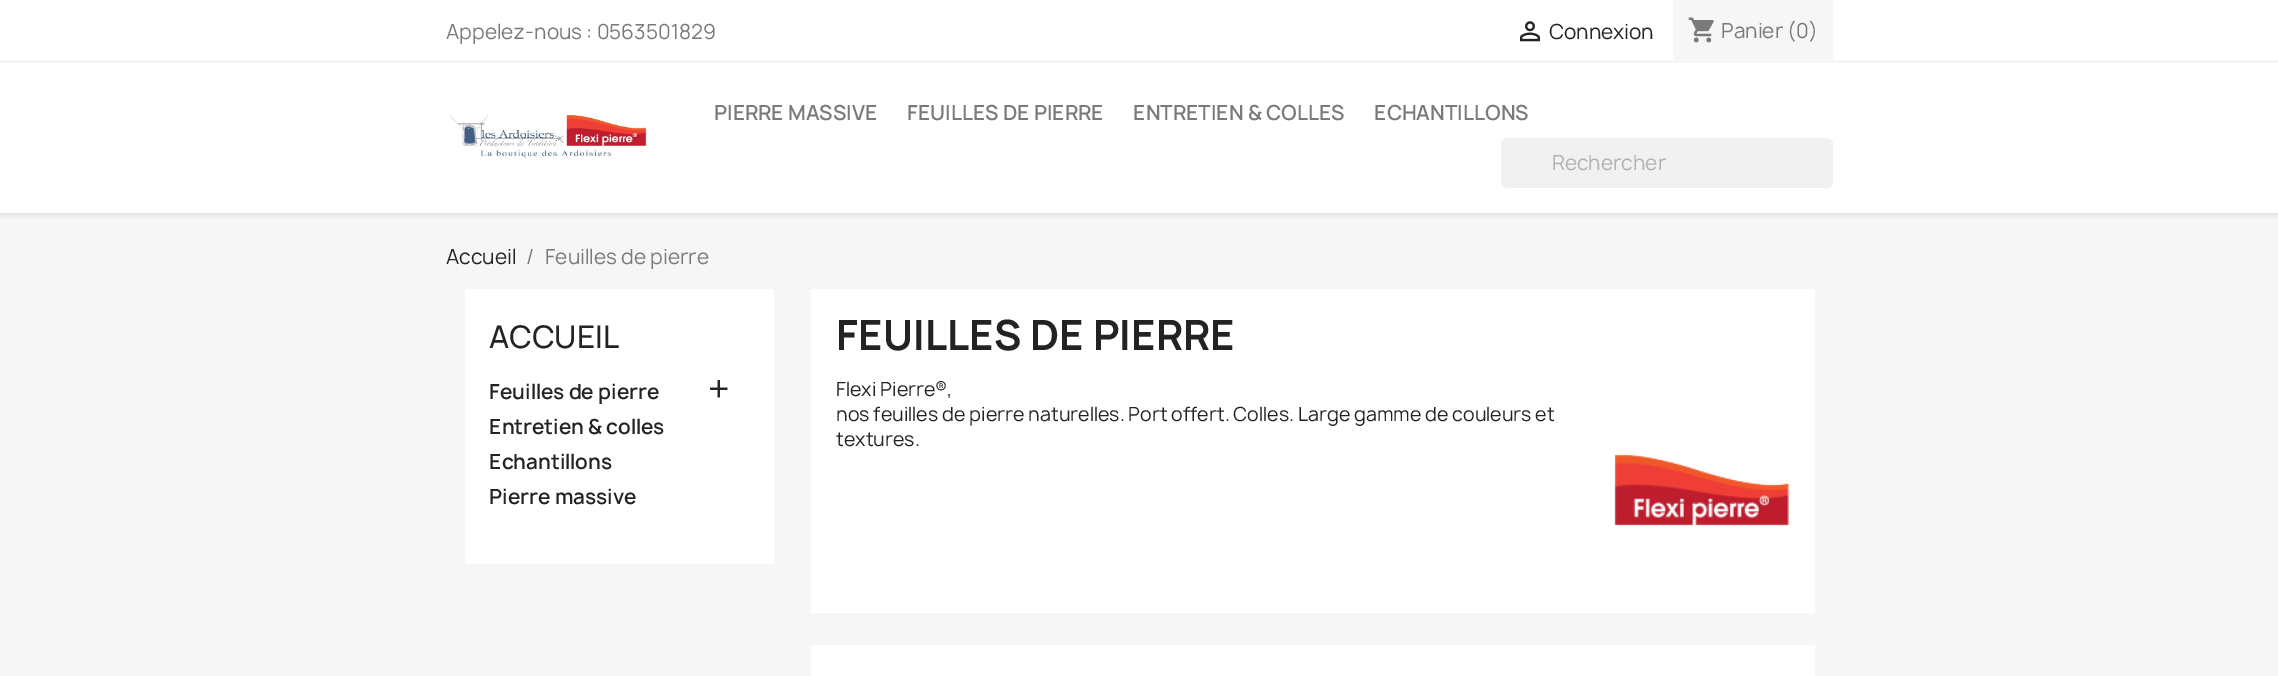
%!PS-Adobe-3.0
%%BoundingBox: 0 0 2278 676
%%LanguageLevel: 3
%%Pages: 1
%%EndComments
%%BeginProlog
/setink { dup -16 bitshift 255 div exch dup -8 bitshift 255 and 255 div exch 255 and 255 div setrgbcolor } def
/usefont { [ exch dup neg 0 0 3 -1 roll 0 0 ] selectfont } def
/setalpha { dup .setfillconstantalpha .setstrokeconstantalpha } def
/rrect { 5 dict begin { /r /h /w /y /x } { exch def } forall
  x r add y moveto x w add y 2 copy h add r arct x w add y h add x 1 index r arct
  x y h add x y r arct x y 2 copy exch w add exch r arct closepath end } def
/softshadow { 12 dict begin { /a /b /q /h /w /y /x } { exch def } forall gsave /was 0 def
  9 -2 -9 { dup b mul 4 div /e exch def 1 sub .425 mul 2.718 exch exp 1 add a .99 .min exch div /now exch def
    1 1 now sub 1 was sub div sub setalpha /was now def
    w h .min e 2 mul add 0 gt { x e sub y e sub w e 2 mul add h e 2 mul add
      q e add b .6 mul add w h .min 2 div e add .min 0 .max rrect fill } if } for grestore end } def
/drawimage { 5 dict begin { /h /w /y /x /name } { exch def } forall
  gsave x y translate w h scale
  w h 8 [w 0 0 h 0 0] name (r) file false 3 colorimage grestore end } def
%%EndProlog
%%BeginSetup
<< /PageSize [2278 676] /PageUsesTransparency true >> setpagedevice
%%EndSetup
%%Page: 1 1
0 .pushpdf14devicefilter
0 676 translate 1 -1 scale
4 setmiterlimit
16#F6F6F6 setink
0 0 2278 676 rectfill
16#000000 setink
0 3 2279 212 0 3 0.11 softshadow
16#FFFFFF setink
0 0 2278 213 rectfill
16#F6F6F6 setink
0 60 2278 3 rectfill
/Manrope-Regular 20 usefont
16#7A7A7A setink
446 39 moveto (Appelez-nous : 0563501829) show
(img1.raw) 1520 21 20 21 drawimage
16#232323 setink
1549 39 moveto (Connexion) show
16#F6F6F6 setink
1673 0 160 60 rectfill
(img2.raw) 1688 17 26 26 drawimage
16#7A7A7A setink
1721 38 moveto (Panier \(0\)) show
(img3.raw) 449 115 198 43 drawimage
/Manrope-SemiBold 20 usefont
[
    [(PIERRE MASSIVE) 714 120]
    [(FEUILLES DE PIERRE) 907 120]
    [(ENTRETIEN & COLLES) 1133 120]
    [(ECHANTILLONS) 1374 120]
] { aload pop moveto show } forall
16#F1F1F1 setink
1501 138 332 50 6 rrect fill
/Manrope-Regular 20 usefont
16#B1B1B1 setink
1552 170 moveto (Rechercher) show
16#232323 setink
446 264 moveto (Accueil) show
16#7A7A7A setink
526 264 moveto (/) show
545 264 moveto (Feuilles de pierre) show
16#FFFFFF setink
465 289 309 275 rectfill
/Manrope-Medium 30 usefont
16#232323 setink
489 348 moveto (ACCUEIL) show
/Manrope-SemiBold 20 usefont
489 399 moveto (Feuilles de pierre) show
(img4.raw) 710 380 18 18 drawimage
[
    [(Entretien & colles) 489 434]
    [(Echantillons) 489 469]
    [(Pierre massive) 489 504]
] { aload pop moveto show } forall
16#FFFFFF setink
811 289 1004 324 rectfill
/Manrope-Bold 40 usefont
16#232323 setink
836 350 moveto (FEUILLES DE PIERRE) show
/Manrope-Regular 18.75 usefont
[
    [(Flexi Pierre®,) 836 396]
    [(nos feuilles de pierre naturelles. Port offert. Colles. Large gamme de couleurs et) 836 421]
    [(textures.) 836 446]
] { aload pop moveto show } forall
(img5.raw) 1614 454 175 72 drawimage
16#FFFFFF setink
811 645 1004 31 rectfill
.poppdf14devicefilter showpage
%%EOF
